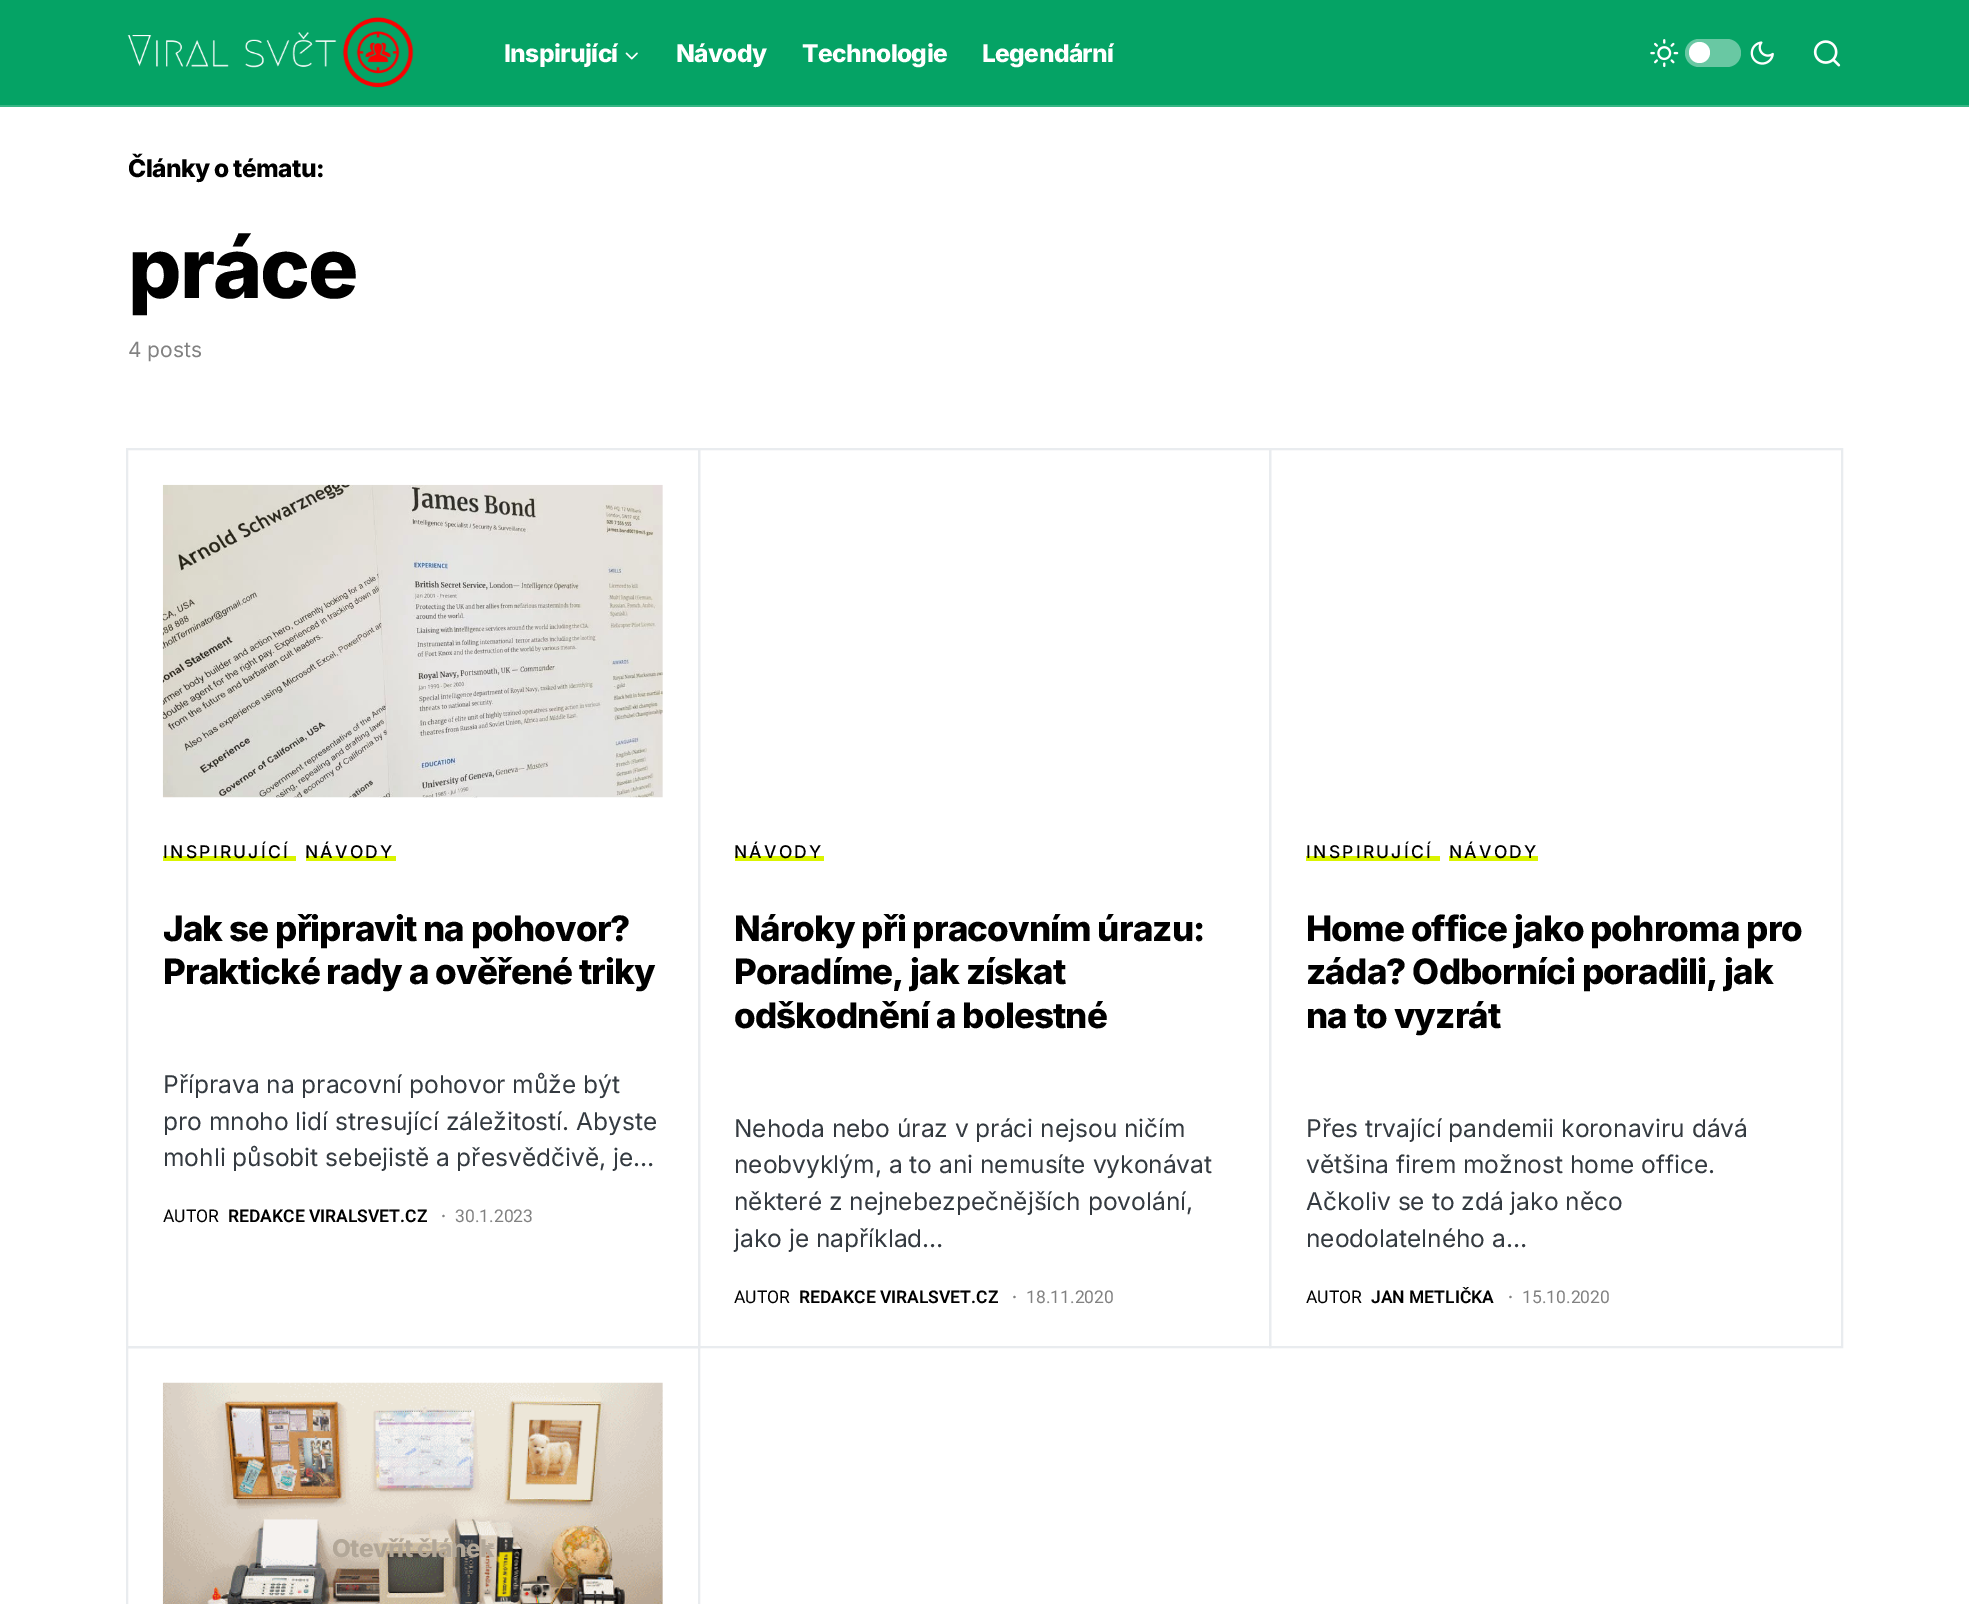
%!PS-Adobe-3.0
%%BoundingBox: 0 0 1969 1604
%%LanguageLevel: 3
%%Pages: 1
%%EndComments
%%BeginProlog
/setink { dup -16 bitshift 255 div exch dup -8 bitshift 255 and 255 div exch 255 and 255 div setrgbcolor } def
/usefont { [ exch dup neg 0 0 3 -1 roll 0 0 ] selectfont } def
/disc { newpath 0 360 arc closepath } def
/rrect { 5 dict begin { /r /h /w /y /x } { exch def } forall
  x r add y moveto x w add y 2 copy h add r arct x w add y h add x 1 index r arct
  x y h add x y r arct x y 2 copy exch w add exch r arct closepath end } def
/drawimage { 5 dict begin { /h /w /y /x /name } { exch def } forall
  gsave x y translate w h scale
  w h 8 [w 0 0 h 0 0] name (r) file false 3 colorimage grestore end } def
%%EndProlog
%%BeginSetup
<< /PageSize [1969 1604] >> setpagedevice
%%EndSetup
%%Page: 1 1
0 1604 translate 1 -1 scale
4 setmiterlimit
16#FFFFFF setink
0 0 1969 1604 rectfill
16#05A365 setink
0 0 1969 105 rectfill
16#37B584 setink
0 105 1969 2 rectfill
(img1.raw) 127 17 287 71 drawimage
/Inter-ExtraBold 24.5 usefont
16#FFFFFF setink
504 62 moveto -0.6 0 (Inspirující) ashow
(img2.raw) 625 52 13 8 drawimage
676 62 moveto -0.6 0 (Návody) ashow
802 62 moveto -0.6 0 (Technologie) ashow
982 62 moveto -0.6 0 (Legendární) ashow
(img3.raw) 1650 39 29 29 drawimage
16#69C8A3 setink
1685 39 56 28 14 rrect fill
16#FFFFFF setink
1699.5 52.5 10.5 disc fill
(img4.raw) 1750 41 24 24 drawimage
(img5.raw) 1813 40 28 27 drawimage
16#000000 setink
128 177 moveto -0.6 0 (Články o tématu:) ashow
/Inter-ExtraBold 84 usefont
128 298 moveto -2 0 (práce) ashow
/Inter-Regular 21 usefont
16#818181 setink
128 357 moveto (4 posts) show
16#E9ECEF setink
2 setlinewidth
127 449 572 898 rectstroke
(img6.raw) 162 484 501 314 drawimage
16#DAF400 setink
163 856 133 5 rectfill
/Inter-Medium 17.5 usefont
16#000000 setink
163 858 moveto 2.25 0 (INSPIRUJÍCÍ) ashow
16#DAF400 setink
306 856 90 5 rectfill
16#000000 setink
305 858 moveto 2.25 0 (NÁVODY) ashow
/Inter-ExtraBold 35 usefont
163 941 moveto -0.9 0 (Jak se připravit na pohovor?) ashow
163 984 moveto -0.9 0 (Praktické rady a ověřené triky) ashow
/Inter-Regular 24.5 usefont
16#343A40 setink
[
    [(Příprava na pracovní pohovor může být) 163 1093]
    [(pro mnoho lidí stresující záležitostí. Abyste) 163 1130]
    [(mohli působit sebejistě a přesvědčivě, je…) 163 1166]
] { aload pop moveto show } forall
/Roboto-Regular 17.5 usefont
16#000000 setink
163 1222 moveto (AUTOR) show
/Roboto-SemiBold 17.5 usefont
228 1222 moveto (REDAKCE VIRALSVET.CZ) show
16#818181 setink
441 1222 moveto (·) show
/Roboto-Regular 17.5 usefont
455 1222 moveto (30.1.2023) show
16#E9ECEF setink
699 449 571 898 rectstroke
16#DAF400 setink
735 856 89 5 rectfill
/Inter-Medium 17.5 usefont
16#000000 setink
734 858 moveto 2.25 0 (NÁVODY) ashow
/Inter-ExtraBold 35 usefont
734 941 moveto -0.9 0 (Nároky při pracovním úrazu:) ashow
734 984 moveto -0.9 0 (Poradíme, jak získat) ashow
734 1028 moveto -0.9 0 (odškodnění a bolestné) ashow
/Inter-Regular 24.5 usefont
16#343A40 setink
[
    [(Nehoda nebo úraz v práci nejsou ničím) 734 1137]
    [(neobvyklým, a to ani nemusíte vykonávat) 734 1173]
    [(některé z nejnebezpečnějších povolání,) 734 1210]
    [(jako je například…) 734 1247]
] { aload pop moveto show } forall
/Roboto-Regular 17.5 usefont
16#000000 setink
734 1303 moveto (AUTOR) show
/Roboto-SemiBold 17.5 usefont
799 1303 moveto (REDAKCE VIRALSVET.CZ) show
16#818181 setink
1012 1303 moveto (·) show
/Roboto-Regular 17.5 usefont
1026 1303 moveto (18.11.2020) show
16#E9ECEF setink
1270 449 572 898 rectstroke
16#DAF400 setink
1306 856 134 5 rectfill
/Inter-Medium 17.5 usefont
16#000000 setink
1306 858 moveto 2.25 0 (INSPIRUJÍCÍ) ashow
16#DAF400 setink
1449 856 89 5 rectfill
16#000000 setink
1449 858 moveto 2.25 0 (NÁVODY) ashow
/Inter-ExtraBold 35 usefont
1306 941 moveto -0.9 0 (Home office jako pohroma pro) ashow
1306 984 moveto -0.9 0 (záda? Odborníci poradili, jak) ashow
1306 1028 moveto -0.9 0 (na to vyzrát) ashow
/Inter-Regular 24.5 usefont
16#343A40 setink
[
    [(Přes trvající pandemii koronaviru dává) 1306 1137]
    [(většina firem možnost home office.) 1306 1173]
    [(Ačkoliv se to zdá jako něco) 1306 1210]
    [(neodolatelného a…) 1306 1247]
] { aload pop moveto show } forall
/Roboto-Regular 17.5 usefont
16#000000 setink
1306 1303 moveto (AUTOR) show
/Roboto-SemiBold 17.5 usefont
1371 1303 moveto (JAN METLIČKA) show
16#818181 setink
1508 1303 moveto (·) show
/Roboto-Regular 17.5 usefont
1522 1303 moveto (15.10.2020) show
16#E9ECEF setink
127 1347 572 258 rectstroke
(img7.raw) 162 1382 501 222 drawimage
/Inter-ExtraBold 24.5 usefont
16#B2A798 setink
332 1557 moveto -0.6 0 (Otevřít článek) ashow
showpage
%%EOF
